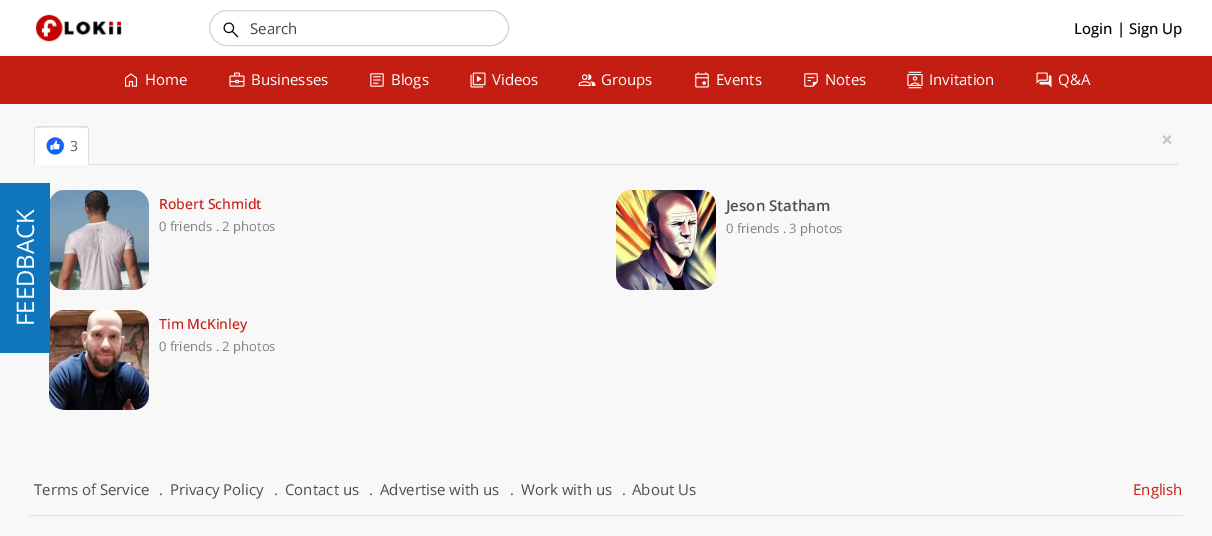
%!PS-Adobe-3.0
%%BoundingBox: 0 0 1212 536
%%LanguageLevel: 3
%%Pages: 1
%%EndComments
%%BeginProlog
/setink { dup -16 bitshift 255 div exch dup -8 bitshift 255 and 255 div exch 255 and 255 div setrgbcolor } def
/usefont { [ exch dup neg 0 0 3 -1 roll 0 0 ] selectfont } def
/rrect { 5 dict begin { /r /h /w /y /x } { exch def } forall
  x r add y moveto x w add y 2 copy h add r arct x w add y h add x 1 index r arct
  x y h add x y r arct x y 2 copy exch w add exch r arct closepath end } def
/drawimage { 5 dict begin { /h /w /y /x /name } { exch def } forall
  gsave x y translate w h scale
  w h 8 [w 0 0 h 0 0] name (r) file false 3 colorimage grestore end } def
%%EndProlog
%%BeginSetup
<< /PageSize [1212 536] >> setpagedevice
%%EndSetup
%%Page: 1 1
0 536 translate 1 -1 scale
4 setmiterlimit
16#F8F8F8 setink
0 0 1212 536 rectfill
16#C41E13 setink
0 56 1212 48 rectfill
16#FFFFFF setink
0 0 1212 55 rectfill
(img1.raw) 35 14 87 30 drawimage
16#D4D4D4 setink
209.5 10.5 299 35 17.5 rrect stroke
(img2.raw) 223 22 16 16 drawimage
/OpenSans-Regular 15 usefont
16#444444 setink
250 34 moveto (Search) show
/OpenSans-Medium 15 usefont
16#000000 setink
1074 34 moveto (Login | Sign Up) show
(img3.raw) 125 73 12 14 drawimage
/OpenSans-Regular 15 usefont
16#FFFFFF setink
145 85 moveto (Home) show
(img4.raw) 229 72 16 15 drawimage
251 85 moveto (Businesses) show
(img5.raw) 370 73 14 14 drawimage
391 85 moveto (Blogs) show
(img6.raw) 470 72 16 16 drawimage
492 85 moveto (Videos) show
(img7.raw) 578 74 18 12 drawimage
601 85 moveto (Groups) show
(img8.raw) 695 72 14 16 drawimage
716 85 moveto (Events) show
(img9.raw) 804 73 14 14 drawimage
825 85 moveto (Notes) show
(img10.raw) 907 71 16 18 drawimage
929 85 moveto (Invitation) show
(img11.raw) 1036 72 16 16 drawimage
1058 85 moveto (Q&A) show
(img15.raw) 49 310 100 100 drawimage
16#0F75BD setink
0 183 50 170 rectfill
/OpenSans-Regular 24 usefont
16#FFFFFF setink
gsave 34 326 translate -90 rotate 0 0 moveto (FEEDBACK) show grestore
16#DDDDDD setink
89 164 1089 1 rectfill
16#FFFFFF setink
38 126 moveto 85 126 lineto 87 126 89 128 89 130 curveto 89 165 lineto 34 165 lineto 34 130 lineto 34 128 36 126 38 126 curveto closepath fill
16#DDDDDD setink
38 126 moveto 35 127 lineto 36 128 lineto 37 127 86 127 87 128 curveto 88 127 lineto 85 126 lineto closepath fill
89 165 moveto 89 130 lineto 89 129 88.5 128 88 127 curveto 87 128 lineto 88 128 88 129 88 130 curveto 88 164 lineto closepath 34 165 moveto 35 164 lineto 35 130 lineto 35 129 35 128 36 128 curveto 35 127 lineto 34.5 128 34 129 34 130 curveto closepath fill
(img12.raw) 46 137 18 18 drawimage
/OpenSans-Regular 14 usefont
16#555555 setink
70 151 moveto (3) show
/OpenSans-Bold 21 usefont
16#C6C6C6 setink
1161 147 moveto (×) show
(img13.raw) 50 190 99 100 drawimage
/OpenSans-Medium 14 usefont
16#C41E13 setink
159 209 moveto (Robert Schmidt) show
/OpenSans-Regular 13 usefont
16#828282 setink
159 231 moveto (0 friends . 2 photos) show
(img14.raw) 616 190 100 100 drawimage
/OpenSans-SemiBold 15 usefont
16#4F4F4F setink
726 211 moveto (Jeson Statham) show
/OpenSans-Regular 13 usefont
16#828282 setink
726 233 moveto (0 friends . 3 photos) show
/OpenSans-Medium 14 usefont
16#C41E13 setink
159 329 moveto (Tim McKinley) show
/OpenSans-Regular 13 usefont
16#828282 setink
159 351 moveto (0 friends . 2 photos) show
16#E0E0E0 setink
29 515 1154 1 rectfill
/OpenSans-Regular 15 usefont
16#4F4F4F setink
[
    [(Terms of Service) 34 495]
    [(.) 159 495]
    [(Privacy Policy) 170 495]
    [(.) 274 495]
    [(Contact us) 285 495]
    [(.) 369 495]
    [(Advertise with us) 380 495]
    [(.) 510 495]
    [(Work with us) 521 495]
    [(.) 622 495]
    [(About Us) 632 495]
] { aload pop moveto show } forall
16#C41E13 setink
1133 495 moveto (English) show
showpage
%%EOF
